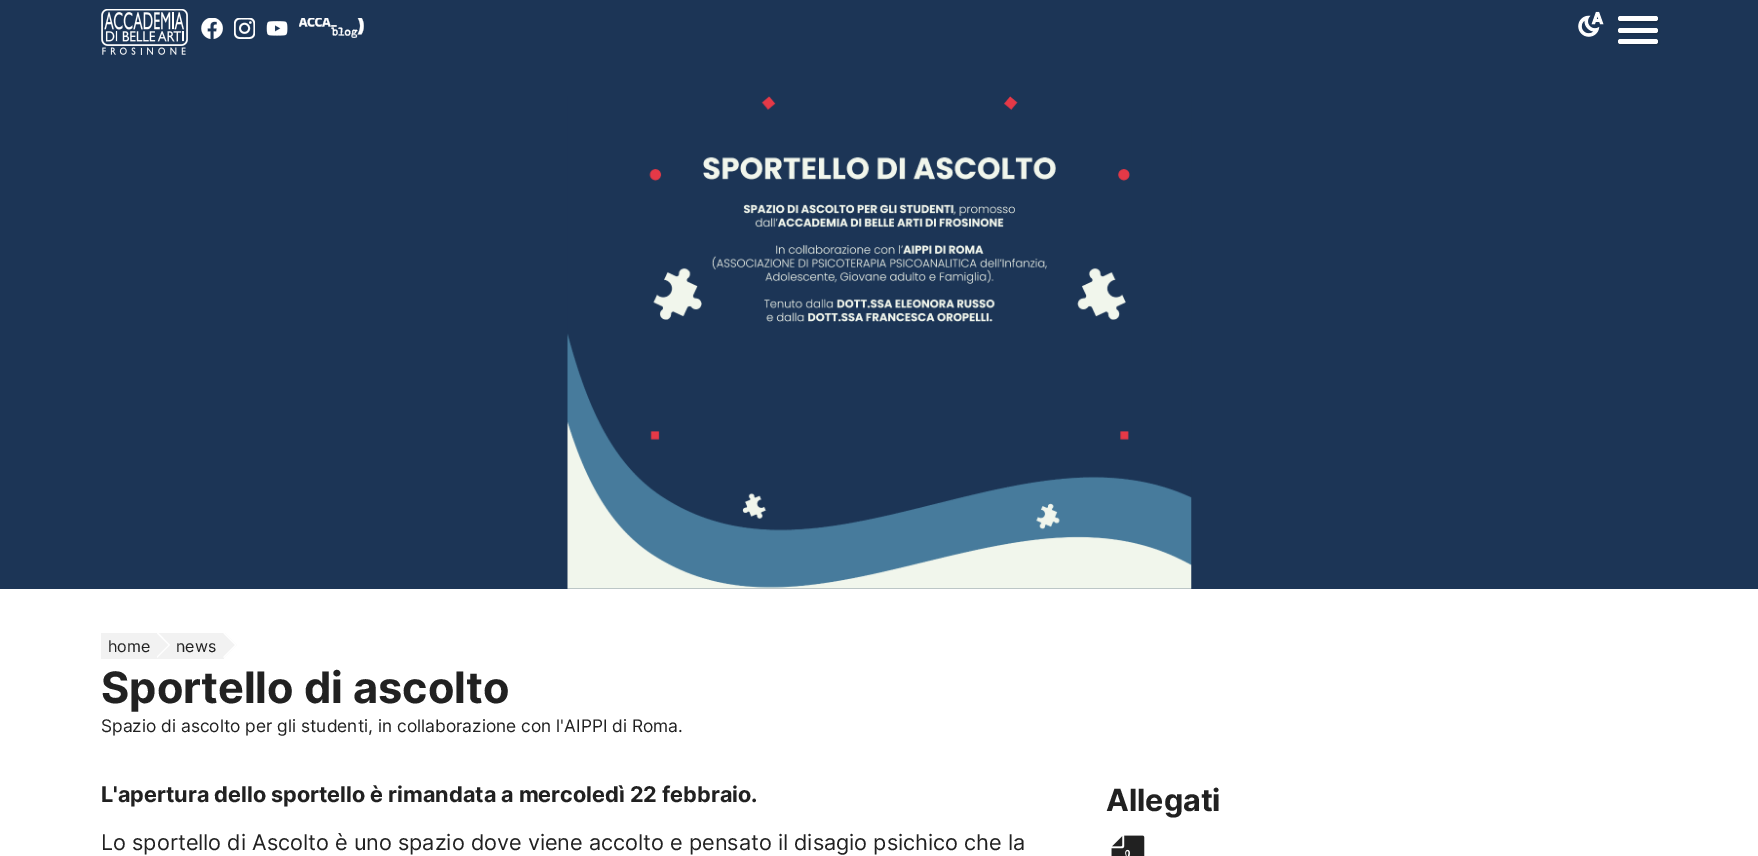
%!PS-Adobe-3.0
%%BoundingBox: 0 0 1758 856
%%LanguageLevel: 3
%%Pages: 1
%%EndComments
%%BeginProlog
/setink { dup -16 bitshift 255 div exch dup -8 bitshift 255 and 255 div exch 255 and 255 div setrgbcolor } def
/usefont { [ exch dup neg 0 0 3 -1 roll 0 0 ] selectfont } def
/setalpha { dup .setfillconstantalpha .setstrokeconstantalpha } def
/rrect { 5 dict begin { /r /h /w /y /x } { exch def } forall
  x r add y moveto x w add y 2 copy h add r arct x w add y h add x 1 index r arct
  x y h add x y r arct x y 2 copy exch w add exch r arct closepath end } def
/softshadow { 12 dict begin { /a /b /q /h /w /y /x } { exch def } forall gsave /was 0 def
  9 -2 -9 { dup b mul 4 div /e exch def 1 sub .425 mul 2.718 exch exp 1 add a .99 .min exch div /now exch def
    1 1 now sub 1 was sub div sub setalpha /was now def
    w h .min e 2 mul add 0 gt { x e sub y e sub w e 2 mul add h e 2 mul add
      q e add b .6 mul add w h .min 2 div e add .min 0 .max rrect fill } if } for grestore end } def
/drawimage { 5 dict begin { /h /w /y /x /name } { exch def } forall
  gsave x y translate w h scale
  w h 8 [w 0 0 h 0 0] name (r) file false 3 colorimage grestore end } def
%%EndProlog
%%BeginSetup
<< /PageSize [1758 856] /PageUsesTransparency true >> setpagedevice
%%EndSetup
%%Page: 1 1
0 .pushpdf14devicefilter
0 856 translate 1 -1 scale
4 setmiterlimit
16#FFFFFF setink
0 0 1758 856 rectfill
16#1C3556 setink
0 0 1758 589 rectfill
(img1.raw) 101 9 87 46 drawimage
(img2.raw) 201 18 22 21 drawimage
(img3.raw) 234 18 21 21 drawimage
(img4.raw) 266 21 22 15 drawimage
(img5.raw) 299 18 65 20 drawimage
(img6.raw) 1578 11 26 26 drawimage
16#000000 setink
1619 18 40 5 2.5 1 0.2 softshadow
16#FFFFFF setink
1618 16 40 5 2.5 rrect fill
16#000000 setink
1619 29 40 5 2.5 1 0.2 softshadow
16#FFFFFF setink
1618 28 40 5 2.5 rrect fill
16#000000 setink
1619 40 40 5 2.5 1 0.2 softshadow
16#FFFFFF setink
1618 39 40 5 2.5 rrect fill
(img7.raw) 567 96 625 493 drawimage
16#F2F2F2 setink
101 633 123 26 rectfill
/Inter-Regular 16 usefont
16#212121 setink
108 652 moveto (home) show
gsave
101 633 1557 26 rectclip
16#FFFFFF setink
157 631.5 moveto 170 645 lineto 168.5 645 lineto 157 633.5 lineto closepath fill
grestore
16#FFFFFF setink
170 645 moveto 157 658 lineto 157 656.5 lineto 168.5 645 lineto closepath fill
gsave
101 633 1557 26 rectclip
16#F2F2F2 setink
223.5 631.5 moveto 237 645 lineto 223.5 658 lineto 210.5 645 lineto closepath fill
grestore
16#212121 setink
176 652 moveto (news) show
gsave
101 633 1557 26 rectclip
16#FFFFFF setink
223.5 631.5 moveto 237 645 lineto 235 645 lineto 223.5 633.5 lineto closepath fill
grestore
16#FFFFFF setink
237 645 moveto 223.5 658 lineto 223.5 656.5 lineto 235 645 lineto closepath fill
/Inter-Bold 43.25 usefont
16#212121 setink
101 703 moveto (Sportello di ascolto) show
/Inter-Regular 17.35 usefont
101 732 moveto (Spazio di ascolto per gli studenti, in collaborazione con l'AIPPI di Roma.) show
/Inter-Bold 21.65 usefont
101 802 moveto (L'apertura dello sportello è rimandata a mercoledì 22 febbraio.) show
/Inter-Regular 21.65 usefont
101 850 moveto (Lo sportello di Ascolto è uno spazio dove viene accolto e pensato il disagio psichico che la) show
/Inter-Bold 30.5 usefont
1106 811 moveto (Allegati) show
(img8.raw) 1111 835 34 21 drawimage
.poppdf14devicefilter showpage
%%EOF
